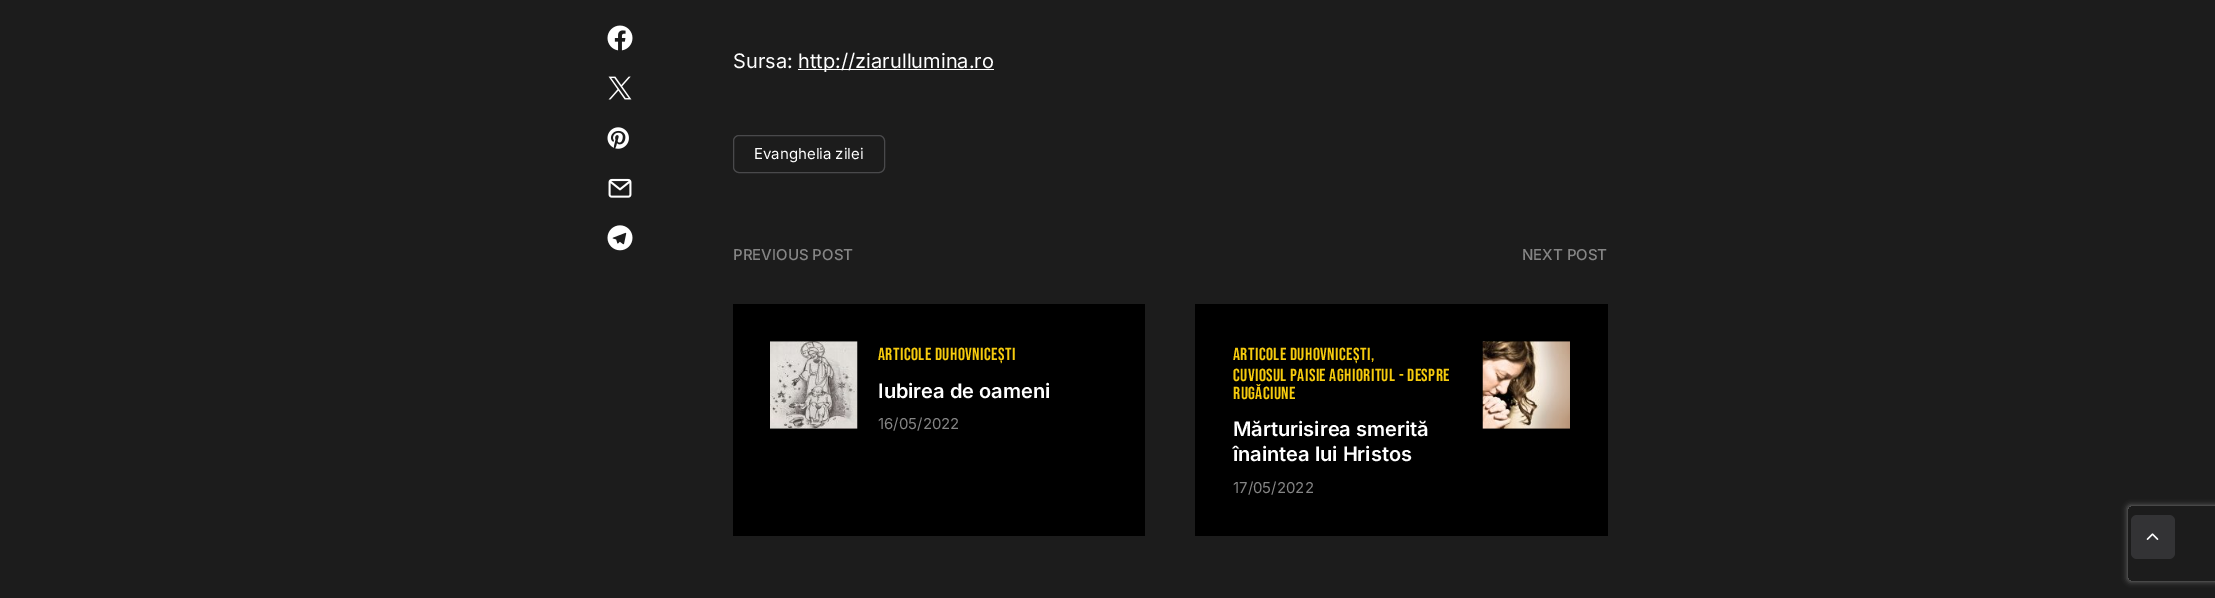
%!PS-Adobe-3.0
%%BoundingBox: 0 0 2215 598
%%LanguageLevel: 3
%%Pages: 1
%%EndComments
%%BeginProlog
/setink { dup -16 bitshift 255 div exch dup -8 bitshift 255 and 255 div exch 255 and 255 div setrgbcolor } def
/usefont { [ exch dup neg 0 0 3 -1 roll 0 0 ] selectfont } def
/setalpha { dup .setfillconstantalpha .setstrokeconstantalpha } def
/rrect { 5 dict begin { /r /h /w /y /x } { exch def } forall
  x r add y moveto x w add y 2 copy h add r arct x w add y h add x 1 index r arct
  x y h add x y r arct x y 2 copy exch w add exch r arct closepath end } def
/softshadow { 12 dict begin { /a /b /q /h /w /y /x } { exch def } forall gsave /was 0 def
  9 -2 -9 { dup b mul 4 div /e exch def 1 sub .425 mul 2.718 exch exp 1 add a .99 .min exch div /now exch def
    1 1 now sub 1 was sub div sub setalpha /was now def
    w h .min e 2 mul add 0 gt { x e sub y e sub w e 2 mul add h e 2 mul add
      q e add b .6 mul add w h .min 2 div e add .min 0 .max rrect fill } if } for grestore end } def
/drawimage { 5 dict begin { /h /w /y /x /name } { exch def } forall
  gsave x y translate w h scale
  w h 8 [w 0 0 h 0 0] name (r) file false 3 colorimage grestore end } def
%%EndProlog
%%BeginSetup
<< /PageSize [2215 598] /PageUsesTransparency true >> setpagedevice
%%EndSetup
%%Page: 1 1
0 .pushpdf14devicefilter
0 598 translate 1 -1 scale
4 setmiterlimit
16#1C1C1C setink
0 0 2215 598 rectfill
(img1.raw) 607 25 26 26 drawimage
(img2.raw) 608 76 24 24 drawimage
(img3.raw) 607 127 22 22 drawimage
(img4.raw) 608 178 24 20 drawimage
(img5.raw) 607 225 26 26 drawimage
/Inter-Regular 20 usefont
16#FFFFFF setink
733 68 moveto (Sursa:) show
798 69 196 1 rectfill
798 68 moveto (http://ziarullumina.ro) show
16#49494B setink
733.5 135.5 151 37 5.5 rrect stroke
/Inter-Regular 15 usefont
16#FFFFFF setink
754 159 moveto (Evanghelia zilei) show
/Inter-Medium 15 usefont
16#858585 setink
733 260 moveto (PREVIOUS POST) show
16#000000 setink
733 304 412 232 rectfill
(img6.raw) 770 341 88 88 drawimage
/BebasNeue-Regular 17.5 usefont
16#F6CB0D setink
878 360 moveto 0.45 0 (ARTICOLE DUHOVNICEȘTI) ashow
/Inter-SemiBold 20 usefont
16#FFFFFF setink
878 398 moveto (Iubirea de oameni) show
/Inter-Regular 15 usefont
16#858585 setink
878 429 moveto (16/05/2022) show
/Inter-Medium 15 usefont
1522 260 moveto (NEXT POST) show
16#000000 setink
1195 304 413 232 rectfill
/BebasNeue-Regular 17.5 usefont
16#F6CB0D setink
1233 360 moveto 0.45 0 (ARTICOLE DUHOVNICEȘTI) ashow
1371 360 moveto 0.45 0 (,) ashow
1233 381 moveto 0.45 0 (CUVIOSUL PAISIE AGHIORITUL - DESPRE) ashow
1233 399 moveto 0.45 0 (RUGĂCIUNE) ashow
/Inter-SemiBold 20 usefont
16#FFFFFF setink
1233 436 moveto (Mărturisirea smerită) show
1233 461 moveto (înaintea lui Hristos) show
/Inter-Regular 15 usefont
16#858585 setink
1233 493 moveto (17/05/2022) show
(img7.raw) 1482 341 88 88 drawimage
16#333335 setink
2131 515 44 44 6 rrect fill
(img8.raw) 2146 533 13 7 drawimage
gsave
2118 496 moveto 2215 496 lineto 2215 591 lineto 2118 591 lineto closepath 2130.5 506 moveto 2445.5 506 lineto 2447 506 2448 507 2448 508.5 curveto 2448 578.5 lineto 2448 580 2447 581 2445.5 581 curveto 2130.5 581 lineto 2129 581 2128 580 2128 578.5 curveto 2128 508.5 lineto 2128 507 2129 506 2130.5 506 curveto closepath eoclip newpath
16#808080 setink
2128 506 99 75 2.5 3 1 softshadow
grestore
.poppdf14devicefilter showpage
%%EOF
